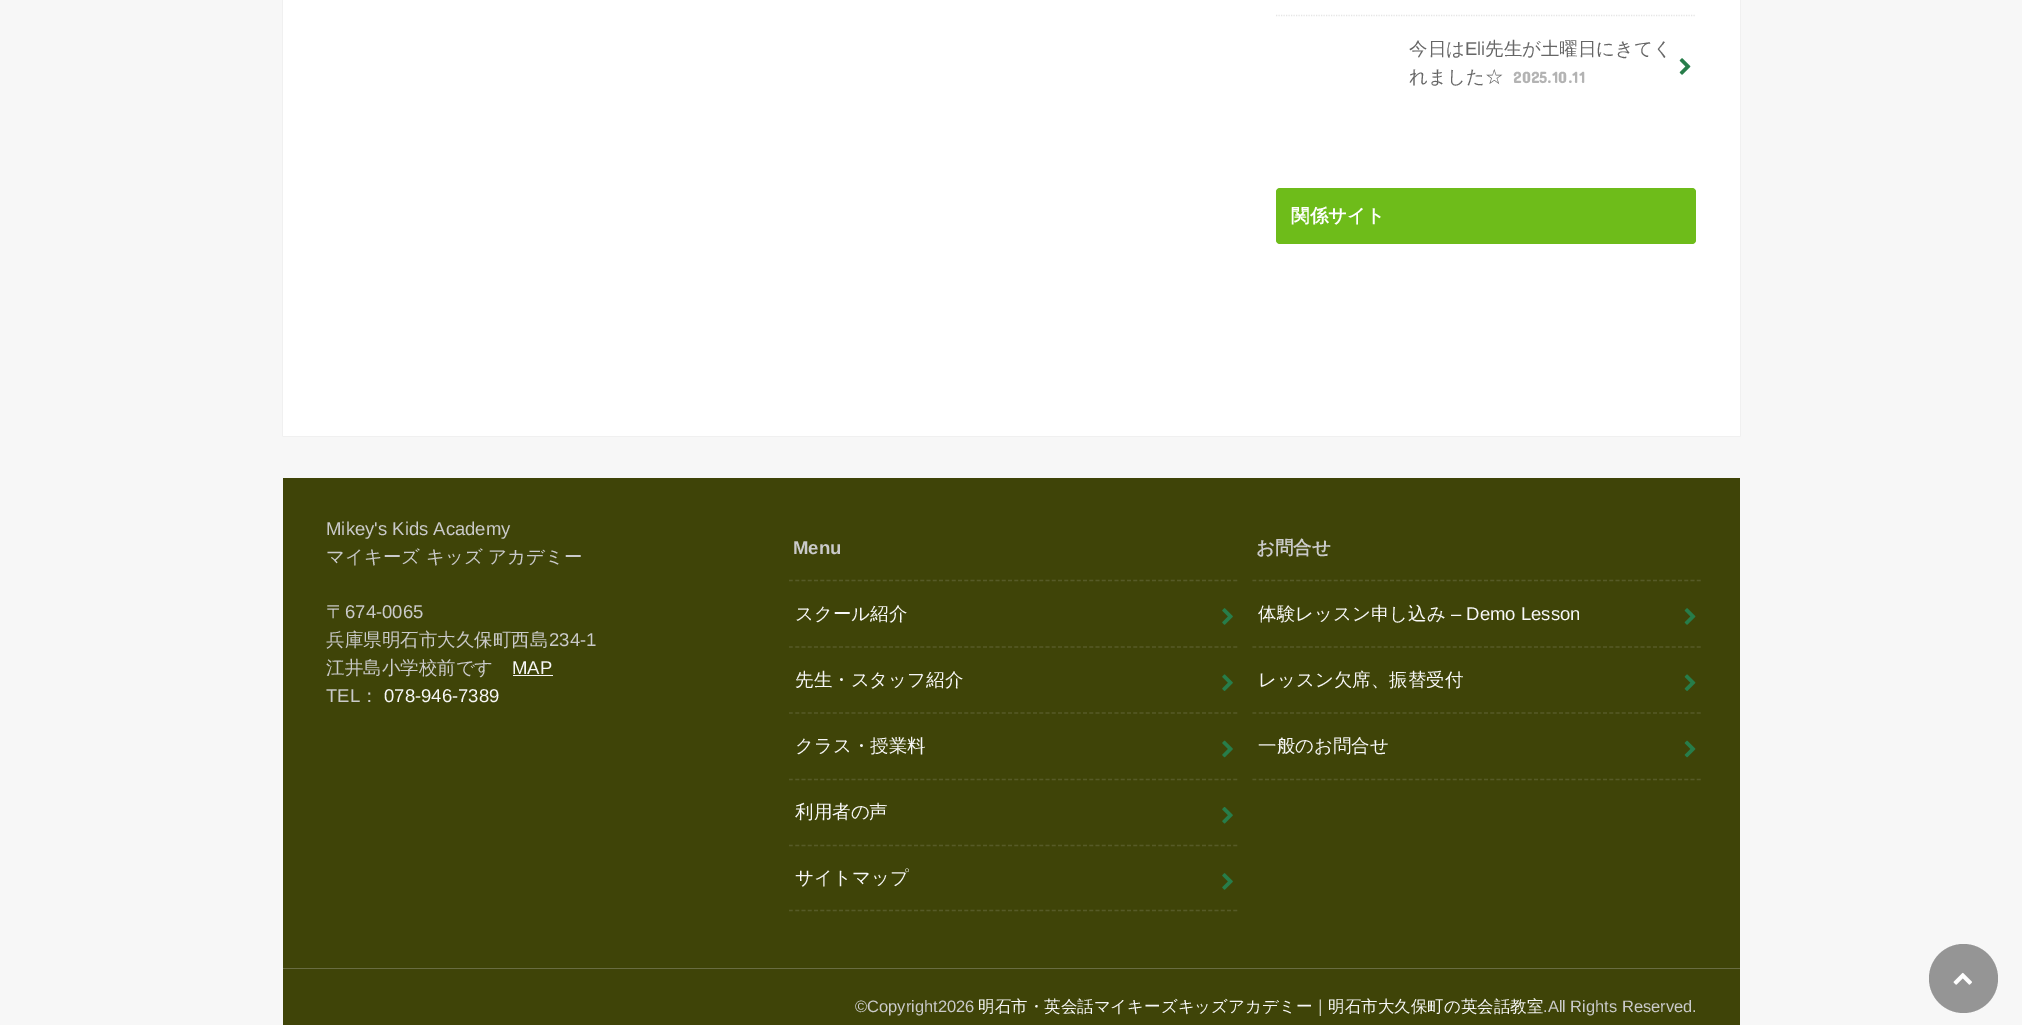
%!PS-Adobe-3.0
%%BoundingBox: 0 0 2022 1025
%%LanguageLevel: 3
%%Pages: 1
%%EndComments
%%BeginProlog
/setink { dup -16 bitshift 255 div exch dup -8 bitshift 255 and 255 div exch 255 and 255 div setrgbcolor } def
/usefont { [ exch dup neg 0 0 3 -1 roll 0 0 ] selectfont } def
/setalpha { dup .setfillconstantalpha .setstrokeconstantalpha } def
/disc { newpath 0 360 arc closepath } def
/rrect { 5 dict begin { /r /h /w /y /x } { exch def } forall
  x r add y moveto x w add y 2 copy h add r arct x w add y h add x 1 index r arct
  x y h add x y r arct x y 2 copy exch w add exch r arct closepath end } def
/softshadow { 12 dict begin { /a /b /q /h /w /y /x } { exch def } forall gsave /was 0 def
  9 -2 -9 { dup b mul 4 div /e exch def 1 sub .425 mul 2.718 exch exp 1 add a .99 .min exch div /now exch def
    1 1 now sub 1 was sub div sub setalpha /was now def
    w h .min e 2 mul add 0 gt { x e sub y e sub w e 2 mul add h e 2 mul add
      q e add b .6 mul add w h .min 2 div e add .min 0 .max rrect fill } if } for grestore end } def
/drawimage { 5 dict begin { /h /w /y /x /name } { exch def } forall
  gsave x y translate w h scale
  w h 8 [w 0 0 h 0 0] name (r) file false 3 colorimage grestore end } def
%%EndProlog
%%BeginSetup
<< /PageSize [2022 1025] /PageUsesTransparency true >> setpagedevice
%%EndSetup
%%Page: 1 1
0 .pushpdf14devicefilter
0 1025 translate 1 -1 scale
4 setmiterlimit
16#F7F7F7 setink
0 0 2022 1025 rectfill
16#DDDDDD setink
283 -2 1457 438 0 0.5 1 softshadow
16#FFFFFF setink
283 0 1457 436 rectfill
16#E5E5E5 setink
1.2 setlinewidth
[1.25 1.25] 0 setdash
1276 15.5 moveto 1696 15.5 lineto stroke
/WenQuanYiZenHei-Medium 18.5 usefont
16#666666 setink
1409 55 moveto (今日は) show
/LiberationSans-Regular 18.5 usefont
1465 55 moveto (Eli) show
/WenQuanYiZenHei-Medium 18.5 usefont
1485 55 moveto (先生が土曜日にきてく) show
1409 83 moveto (れました☆) show
/ConcertOne-Regular 16.5 usefont
16#B3B3B3 setink
1513 83 moveto (2025.10.11) show
(img1.raw) 1679 58 12 17 drawimage
16#6EBC1A setink
1276 188 420 56 4 rrect fill
/WenQuanYiZenHei-Bold 18.5 usefont
16#FFFFFF setink
1291 222 moveto (関係サイト) show
16#3F4408 setink
283 478 1457 490 rectfill
16#696C42 setink
283 968 1457 1 rectfill
/LiberationSans-Regular 18.5 usefont
16#CACACA setink
326 535 moveto (Mikey's Kids Academy) show
/WenQuanYiZenHei-Medium 18.5 usefont
326 563 moveto (マイキーズ キッズ アカデミー) show
326 618 moveto (〒) show
/LiberationSans-Regular 18.5 usefont
345 618 moveto (674-0065) show
/WenQuanYiZenHei-Medium 18.5 usefont
326 646 moveto (兵庫県明石市大久保町西島) show
/LiberationSans-Regular 18.5 usefont
549 646 moveto (234-1) show
/WenQuanYiZenHei-Medium 18.5 usefont
326 674 moveto (江井島小学校前です) show
/LiberationSans-Regular 18.5 usefont
16#F7F7F7 setink
512 674 moveto (MAP) show
513 675 40 1 rectfill
16#CACACA setink
326 702 moveto (TEL) show
/WenQuanYiZenHei-Medium 18.5 usefont
360 702 moveto (：) show
/LiberationSans-Regular 18.5 usefont
16#F7F7F7 setink
384 702 moveto (078-946-7389) show
/LiberationSans-Bold 18.5 usefont
16#CACACA setink
793 554 moveto (Menu) show
16#565A27 setink
[3.75 2.51] 0 setdash
789 580.5 moveto 1237.5 580.5 lineto stroke
789 647 moveto 1237.5 647 lineto stroke
/WenQuanYiZenHei-Medium 18.5 usefont
16#F7F7F7 setink
795 620 moveto (スクール紹介) show
(img2.raw) 1222 608 11 17 drawimage
16#565A27 setink
789 713 moveto 1237.5 713 lineto stroke
16#F7F7F7 setink
795 686 moveto (先生・スタッフ紹介) show
(img3.raw) 1222 674 11 17 drawimage
16#565A27 setink
789 779.5 moveto 1237.5 779.5 lineto stroke
16#F7F7F7 setink
795 752 moveto (クラス・授業料) show
(img4.raw) 1222 740 11 18 drawimage
16#565A27 setink
789 845.5 moveto 1237.5 845.5 lineto stroke
16#F7F7F7 setink
795 818 moveto (利用者の声) show
(img5.raw) 1222 807 11 17 drawimage
16#565A27 setink
789 910.5 moveto 1237.5 910.5 lineto stroke
16#F7F7F7 setink
795 884 moveto (サイトマップ) show
(img2.raw) 1222 873 11 17 drawimage
/WenQuanYiZenHei-Bold 18.5 usefont
16#CACACA setink
1256 554 moveto (お問合せ) show
16#565A27 setink
1252.5 580.5 moveto 1701 580.5 lineto stroke
1252.5 647 moveto 1701 647 lineto stroke
/WenQuanYiZenHei-Medium 18.5 usefont
16#F7F7F7 setink
1258 620 moveto (体験レッスン申し込み) show
/LiberationSans-Regular 18.5 usefont
1451 620 moveto (– Demo Lesson) show
(img6.raw) 1684 608 12 17 drawimage
16#565A27 setink
1252.5 713 moveto 1701 713 lineto stroke
/WenQuanYiZenHei-Medium 18.5 usefont
16#F7F7F7 setink
1258 686 moveto (レッスン欠席、振替受付) show
(img7.raw) 1684 674 12 17 drawimage
16#565A27 setink
1252.5 779.5 moveto 1701 779.5 lineto stroke
16#F7F7F7 setink
1258 752 moveto (一般のお問合せ) show
(img8.raw) 1684 740 12 18 drawimage
16#3F4408 setink
283 969 1457 56 rectfill
/LiberationSans-Regular 16.5 usefont
16#CACACA setink
855 1012 moveto (©Copyright2026) show
/WenQuanYiZenHei-Medium 16.5 usefont
16#F7F7F7 setink
978 1012 moveto (明石市・英会話マイキーズキッズアカデミー｜明石市大久保町の英会話教室) show
/LiberationSans-Regular 16.5 usefont
16#CACACA setink
1543 1012 moveto (.All Rights Reserved.) show
16#959595 setink
1963.5 978.5 34.5 disc fill
(img9.raw) 1953 972 19 13 drawimage
.poppdf14devicefilter showpage
%%EOF
